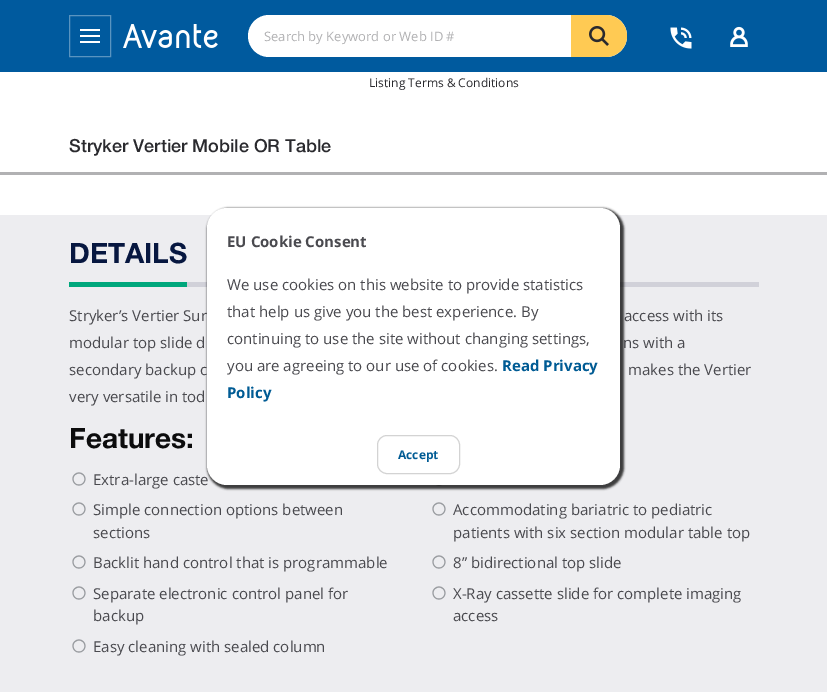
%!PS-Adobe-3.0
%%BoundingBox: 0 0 827 692
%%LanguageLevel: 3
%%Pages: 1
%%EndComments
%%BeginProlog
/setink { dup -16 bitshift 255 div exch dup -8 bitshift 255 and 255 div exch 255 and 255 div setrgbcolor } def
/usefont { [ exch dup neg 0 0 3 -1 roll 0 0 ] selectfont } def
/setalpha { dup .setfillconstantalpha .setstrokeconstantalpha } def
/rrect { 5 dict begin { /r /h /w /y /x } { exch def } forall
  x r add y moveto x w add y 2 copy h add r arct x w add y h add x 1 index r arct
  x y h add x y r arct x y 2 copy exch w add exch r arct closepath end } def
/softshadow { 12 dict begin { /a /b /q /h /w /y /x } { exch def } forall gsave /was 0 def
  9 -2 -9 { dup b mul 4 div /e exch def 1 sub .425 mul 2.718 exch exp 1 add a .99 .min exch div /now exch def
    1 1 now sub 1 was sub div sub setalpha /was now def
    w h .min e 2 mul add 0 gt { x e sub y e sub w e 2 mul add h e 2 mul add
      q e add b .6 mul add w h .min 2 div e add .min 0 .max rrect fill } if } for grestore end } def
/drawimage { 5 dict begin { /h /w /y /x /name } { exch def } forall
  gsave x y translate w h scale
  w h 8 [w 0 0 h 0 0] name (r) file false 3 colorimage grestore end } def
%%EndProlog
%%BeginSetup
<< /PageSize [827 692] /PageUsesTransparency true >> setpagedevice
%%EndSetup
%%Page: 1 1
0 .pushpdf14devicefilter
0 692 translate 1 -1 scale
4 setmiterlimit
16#FFFFFF setink
0 0 827 692 rectfill
16#005A9E setink
0 0 827 72 rectfill
16#5994C0 setink
69.5 15.5 41 41 rectstroke
(img1.raw) 80 29 20 14 drawimage
(img2.raw) 123 24 95 24 drawimage
16#FFFFFF setink
248 15 379 42 21 rrect fill
/OpenSans-Regular 13 usefont
16#B1B1B3 setink
264 41 moveto (Search by Keyword or Web ID #) show
16#FFCA53 setink
571 15 moveto 606 15 lineto 617.5 15 627 24.5 627 36 curveto 627 47.5 617.5 57 606 57 curveto 571 57 lineto closepath fill
(img3.raw) 589 26 20 20 drawimage
(img4.raw) 670 27 22 22 drawimage
(img5.raw) 730 26 18 21 drawimage
/OpenSans-Regular 12 usefont
16#2A2A2E setink
369 87 moveto (Listing Terms & Conditions) show
16#B1B1B3 setink
0 172 827 3 rectfill
/HelveticaNeue-Medium 18 usefont
16#2A2A2E setink
69 152 moveto (Stryker Vertier Mobile OR Table) show
[
    [0 215 827 477 16#EDEDF0]
    [187 282 572 5 16#D1D1D9]
    [69 282 118 5 16#00A77C]
] { aload pop setink rectfill } forall
/HelveticaNeue-Bold 28 usefont
16#071740 setink
69 263 moveto (DETAILS) show
/OpenSans-Regular 15 usefont
16#4A4A4F setink
[
    [(Stryker’s Vertier Sur) 69 321]
    [(access with its) 624 321]
    [(modular top slide d) 69 348]
    [(ns with a) 623 348]
    [(secondary backup c) 69 375]
    [(makes the Vertier) 628 375]
    [(very versatile in tod) 69 402]
] { aload pop moveto show } forall
/HelveticaNeue-Bold 28 usefont
16#0C0C0D setink
69 448 moveto (Features:) show
(img6.raw) 72 472 14 14 drawimage
/OpenSans-Regular 15 usefont
16#4A4A4F setink
93 485 moveto (Extra-large caste) show
(img6.raw) 72 502 14 14 drawimage
93 515 moveto (Simple connection options between) show
93 538 moveto (sections) show
(img6.raw) 72 555 14 14 drawimage
93 568 moveto (Backlit hand control that is programmable) show
(img6.raw) 72 586 14 14 drawimage
93 599 moveto (Separate electronic control panel for) show
93 621 moveto (backup) show
(img6.raw) 72 639 14 14 drawimage
93 652 moveto (Easy cleaning with sealed column) show
(img7.raw) 436 485 6 1 drawimage
(img6.raw) 432 502 14 14 drawimage
453 515 moveto (Accommodating bariatric to pediatric) show
453 538 moveto (patients with six section modular table top) show
(img6.raw) 432 555 14 14 drawimage
453 568 moveto (8” bidirectional top slide) show
(img6.raw) 432 586 14 14 drawimage
453 599 moveto (X-Ray cassette slide for complete imaging) show
453 621 moveto (access) show
16#000000 setink
207 208 417 281 22 1 0.75 softshadow
16#FFFFFF setink
207 208 413 277 20 rrect fill
/OpenSans-Bold 15 usefont
16#4A4A4F setink
227 247 moveto (EU Cookie Consent) show
/OpenSans-Regular 15 usefont
[
    [(We use cookies on this website to provide statistics) 227 290]
    [(that help us give you the best experience. By) 227 317]
    [(continuing to use the site without changing settings,) 227 344]
    [(you are agreeing to our use of cookies.) 227 371]
] { aload pop moveto show } forall
/OpenSans-Bold 15 usefont
16#005B94 setink
502 371 moveto (Read Privacy) show
227 398 moveto (Policy) show
16#D3D3D3 setink
377.5 435.5 82 38 9.5 rrect stroke
/OpenSans-Bold 12 usefont
16#005B94 setink
398 459 moveto (Accept) show
.poppdf14devicefilter showpage
%%EOF
